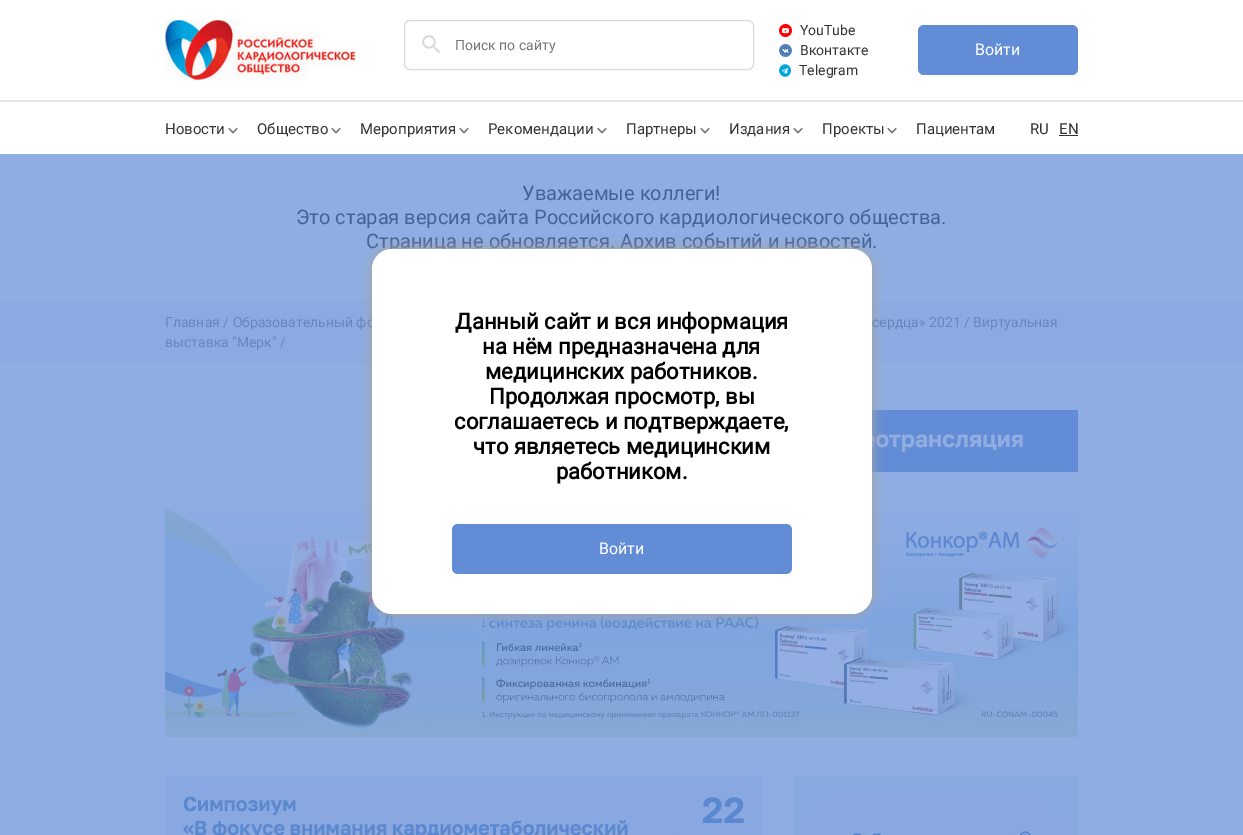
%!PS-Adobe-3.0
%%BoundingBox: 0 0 1243 835
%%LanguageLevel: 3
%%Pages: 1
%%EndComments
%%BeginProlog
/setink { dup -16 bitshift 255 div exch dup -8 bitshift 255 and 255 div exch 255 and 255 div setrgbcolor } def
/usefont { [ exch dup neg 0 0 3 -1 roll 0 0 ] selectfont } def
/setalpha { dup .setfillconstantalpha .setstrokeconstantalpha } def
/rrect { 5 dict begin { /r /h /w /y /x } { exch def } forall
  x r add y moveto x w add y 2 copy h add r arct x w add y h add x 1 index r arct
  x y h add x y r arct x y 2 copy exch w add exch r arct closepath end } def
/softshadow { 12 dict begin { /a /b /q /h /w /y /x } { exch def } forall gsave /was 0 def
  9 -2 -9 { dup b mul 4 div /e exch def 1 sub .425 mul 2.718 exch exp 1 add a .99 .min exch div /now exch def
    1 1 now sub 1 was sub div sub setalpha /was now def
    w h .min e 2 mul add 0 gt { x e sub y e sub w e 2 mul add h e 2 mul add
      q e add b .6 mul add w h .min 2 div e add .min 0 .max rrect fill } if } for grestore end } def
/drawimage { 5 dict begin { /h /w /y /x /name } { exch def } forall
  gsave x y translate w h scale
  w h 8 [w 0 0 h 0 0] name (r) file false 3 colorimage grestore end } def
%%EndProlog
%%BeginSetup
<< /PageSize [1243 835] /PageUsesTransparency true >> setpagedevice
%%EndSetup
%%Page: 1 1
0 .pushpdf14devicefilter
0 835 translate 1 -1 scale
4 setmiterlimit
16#8FADE2 setink
0 0 1243 835 rectfill
16#FFFFFF setink
0 0 1243 100 rectfill
16#E5E5EA setink
0 100 1243 2 rectfill
(img1.raw) 165 20 190 60 drawimage
16#D9D9DE setink
404.5 20.5 349 49 5.5 rrect stroke
(img2.raw) 422 35 18 18 drawimage
/Roboto-Regular 14 usefont
16#757575 setink
455 50 moveto (Поиск по сайту) show
(img3.raw) 779 24 13 13 drawimage
16#333333 setink
800 35 moveto (YouTube) show
(img4.raw) 779 44 13 13 drawimage
800 55 moveto (Вконтакте) show
(img5.raw) 779 64 12 13 drawimage
799 75 moveto (Telegram) show
16#638CD7 setink
918 25 160 50 6 rrect fill
/Roboto-Regular 16 usefont
16#FFFFFF setink
975 55 moveto (Войти) show
0 102 1243 52 rectfill
16#92AFE3 setink
0 154 1243 2 rectfill
/Roboto-Regular 15 usefont
16#333333 setink
165 134 moveto (Новости) show
(img6.raw) 228 127 10 7 drawimage
257 134 moveto (Общество) show
(img6.raw) 331 127 10 7 drawimage
360 134 moveto (Мероприятия) show
(img6.raw) 459 127 10 7 drawimage
488 134 moveto (Рекомендации) show
(img6.raw) 597 127 10 7 drawimage
626 134 moveto (Партнеры) show
(img6.raw) 700 127 10 7 drawimage
729 134 moveto (Издания) show
(img6.raw) 793 127 10 7 drawimage
822 134 moveto (Проекты) show
(img6.raw) 887 127 10 7 drawimage
[
    [(Пациентам) 916 134]
    [(RU) 1030 134]
    [(EN) 1059 134]
] { aload pop moveto show } forall
1059 135 19 1 rectfill
/Roboto-Regular 20 usefont
16#456297 setink
[
    [(Уважаемые коллеги!) 522 200]
    [(Это старая версия сайта Российского кардиологического общества.) 296 224]
    [(Страница не обновляется. Архив событий и новостей.) 366 248]
] { aload pop moveto show } forall
16#8CAAE1 setink
0 302 1243 60 rectfill
(img7.raw) 872 410 206 62 drawimage
(img8.raw) 165 507 913 230 drawimage
16#A2A2A2 setink
371 248 502 367 21 5.5 1 softshadow
/Roboto-Regular 14 usefont
16#6985BB setink
165 327 moveto (Главная / Образовательный фо) show
16#FFFFFF setink
372 249 500 365 20 rrect fill
/Roboto-Bold 22 usefont
16#000000 setink
[
    [(Данный сайт и вся информация) 455 329]
    [(на нём предназначена для) 482 354]
    [(медицинских работников.) 485 379]
    [(Продолжая просмотр, вы) 489 404]
    [(соглашаетесь и подтверждаете,) 454 429]
    [(что являетесь медицинским) 473 454]
    [(работником.) 556 479]
] { aload pop moveto show } forall
16#638CD7 setink
452 524 340 50 6 rrect fill
/Roboto-Regular 16 usefont
16#FFFFFF setink
599 554 moveto (Войти) show
/Roboto-Regular 14 usefont
16#6985BB setink
872 327 moveto (сердца» 2021 / Виртуальная) show
165 347 moveto (выставка "Мерк" /) show
(img9.raw) 165 776 598 59 drawimage
(img10.raw) 794 776 284 59 drawimage
.poppdf14devicefilter showpage
%%EOF
